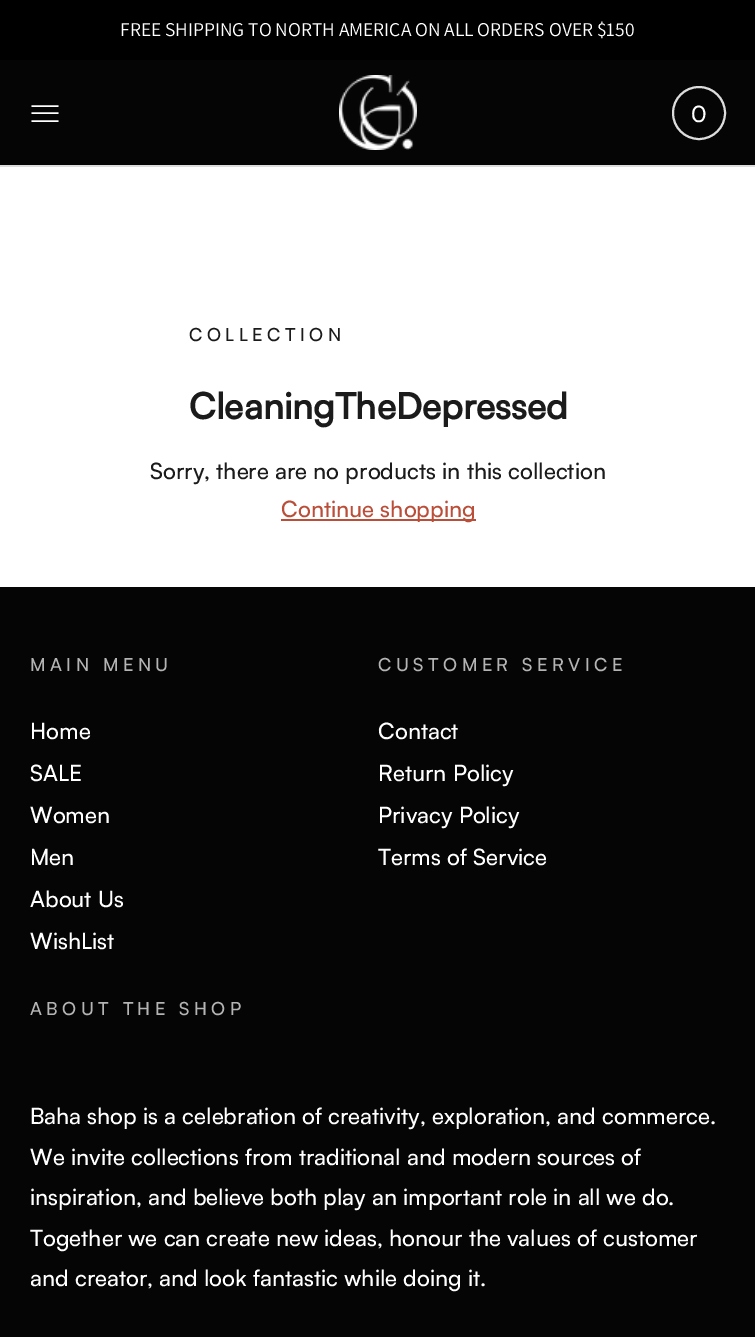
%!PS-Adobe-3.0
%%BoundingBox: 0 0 755 1337
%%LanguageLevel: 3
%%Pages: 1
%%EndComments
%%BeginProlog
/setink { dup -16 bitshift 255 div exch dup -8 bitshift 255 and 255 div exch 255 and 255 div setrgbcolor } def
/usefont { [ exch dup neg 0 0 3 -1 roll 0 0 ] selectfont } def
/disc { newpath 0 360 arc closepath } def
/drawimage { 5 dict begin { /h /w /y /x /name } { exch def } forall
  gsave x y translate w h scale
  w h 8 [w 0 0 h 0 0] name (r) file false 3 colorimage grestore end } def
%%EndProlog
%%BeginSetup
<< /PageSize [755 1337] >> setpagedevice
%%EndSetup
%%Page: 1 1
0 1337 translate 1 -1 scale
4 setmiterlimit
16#FFFFFF setink
0 0 755 1337 rectfill
16#000000 setink
0 0 755 60 rectfill
/Assistant-Regular 19.5 usefont
16#FFFFFF setink
120 36 moveto (FREE SHIPPING TO NORTH AMERICA ON ALL ORDERS OVER $150) show
16#050505 setink
0 60 755 105 rectfill
16#DCDCDC setink
0 165 755 2 rectfill
16#FFFFFF setink
1.5 setlinewidth
31.5 106 moveto 58.5 106 lineto 31.5 113 moveto 58.5 113 lineto 31.5 121 moveto 58.5 121 lineto stroke
(img1.raw) 339 75 78 75 drawimage
16#DCDCDC setink
2 setlinewidth
699 113 26 disc stroke
/Satoshi-Medium 22.5 usefont
16#FFFFFF setink
691 122 moveto (0) show
/Satoshi-Medium 18 usefont
16#1B1B1B setink
189 341 moveto 4.5 0 (COLLECTION) ashow
/Satoshi-Bold 36 usefont
189 419 moveto (CleaningTheDepressed) show
/Satoshi-Medium 22.5 usefont
150 479 moveto (Sorry, there are no products in this collection) show
16#BB4E39 setink
281 519 195 2 rectfill
281 517 moveto (Continue shopping) show
16#050505 setink
0 587 755 750 rectfill
/Satoshi-Medium 18 usefont
16#B4B4B4 setink
30 671 moveto 4.5 0 (MAIN MENU) ashow
/Satoshi-Medium 22.5 usefont
16#FFFFFF setink
[
    [(Home) 30 739]
    [(SALE) 30 781]
    [(Women) 30 823]
    [(Men) 30 865]
    [(About Us) 30 907]
    [(WishList) 30 949]
] { aload pop moveto show } forall
/Satoshi-Medium 18 usefont
16#B4B4B4 setink
378 671 moveto 4.5 0 (CUSTOMER SERVICE) ashow
/Satoshi-Medium 22.5 usefont
16#FFFFFF setink
[
    [(Contact) 378 739]
    [(Return Policy) 378 781]
    [(Privacy Policy) 378 823]
    [(Terms of Service) 378 865]
] { aload pop moveto show } forall
/Satoshi-Medium 18 usefont
16#B4B4B4 setink
30 1015 moveto 4.5 0 (ABOUT THE SHOP) ashow
/Satoshi-Medium 22.5 usefont
16#FFFFFF setink
[
    [(Baha shop is a celebration of creativity, exploration, and commerce.) 30 1124]
    [(We invite collections from traditional and modern sources of) 30 1165]
    [(inspiration, and believe both play an important role in all we do.) 30 1205]
    [(Together we can create new ideas, honour the values of customer) 30 1246]
    [(and creator, and look fantastic while doing it.) 30 1286]
] { aload pop moveto show } forall
showpage
%%EOF
